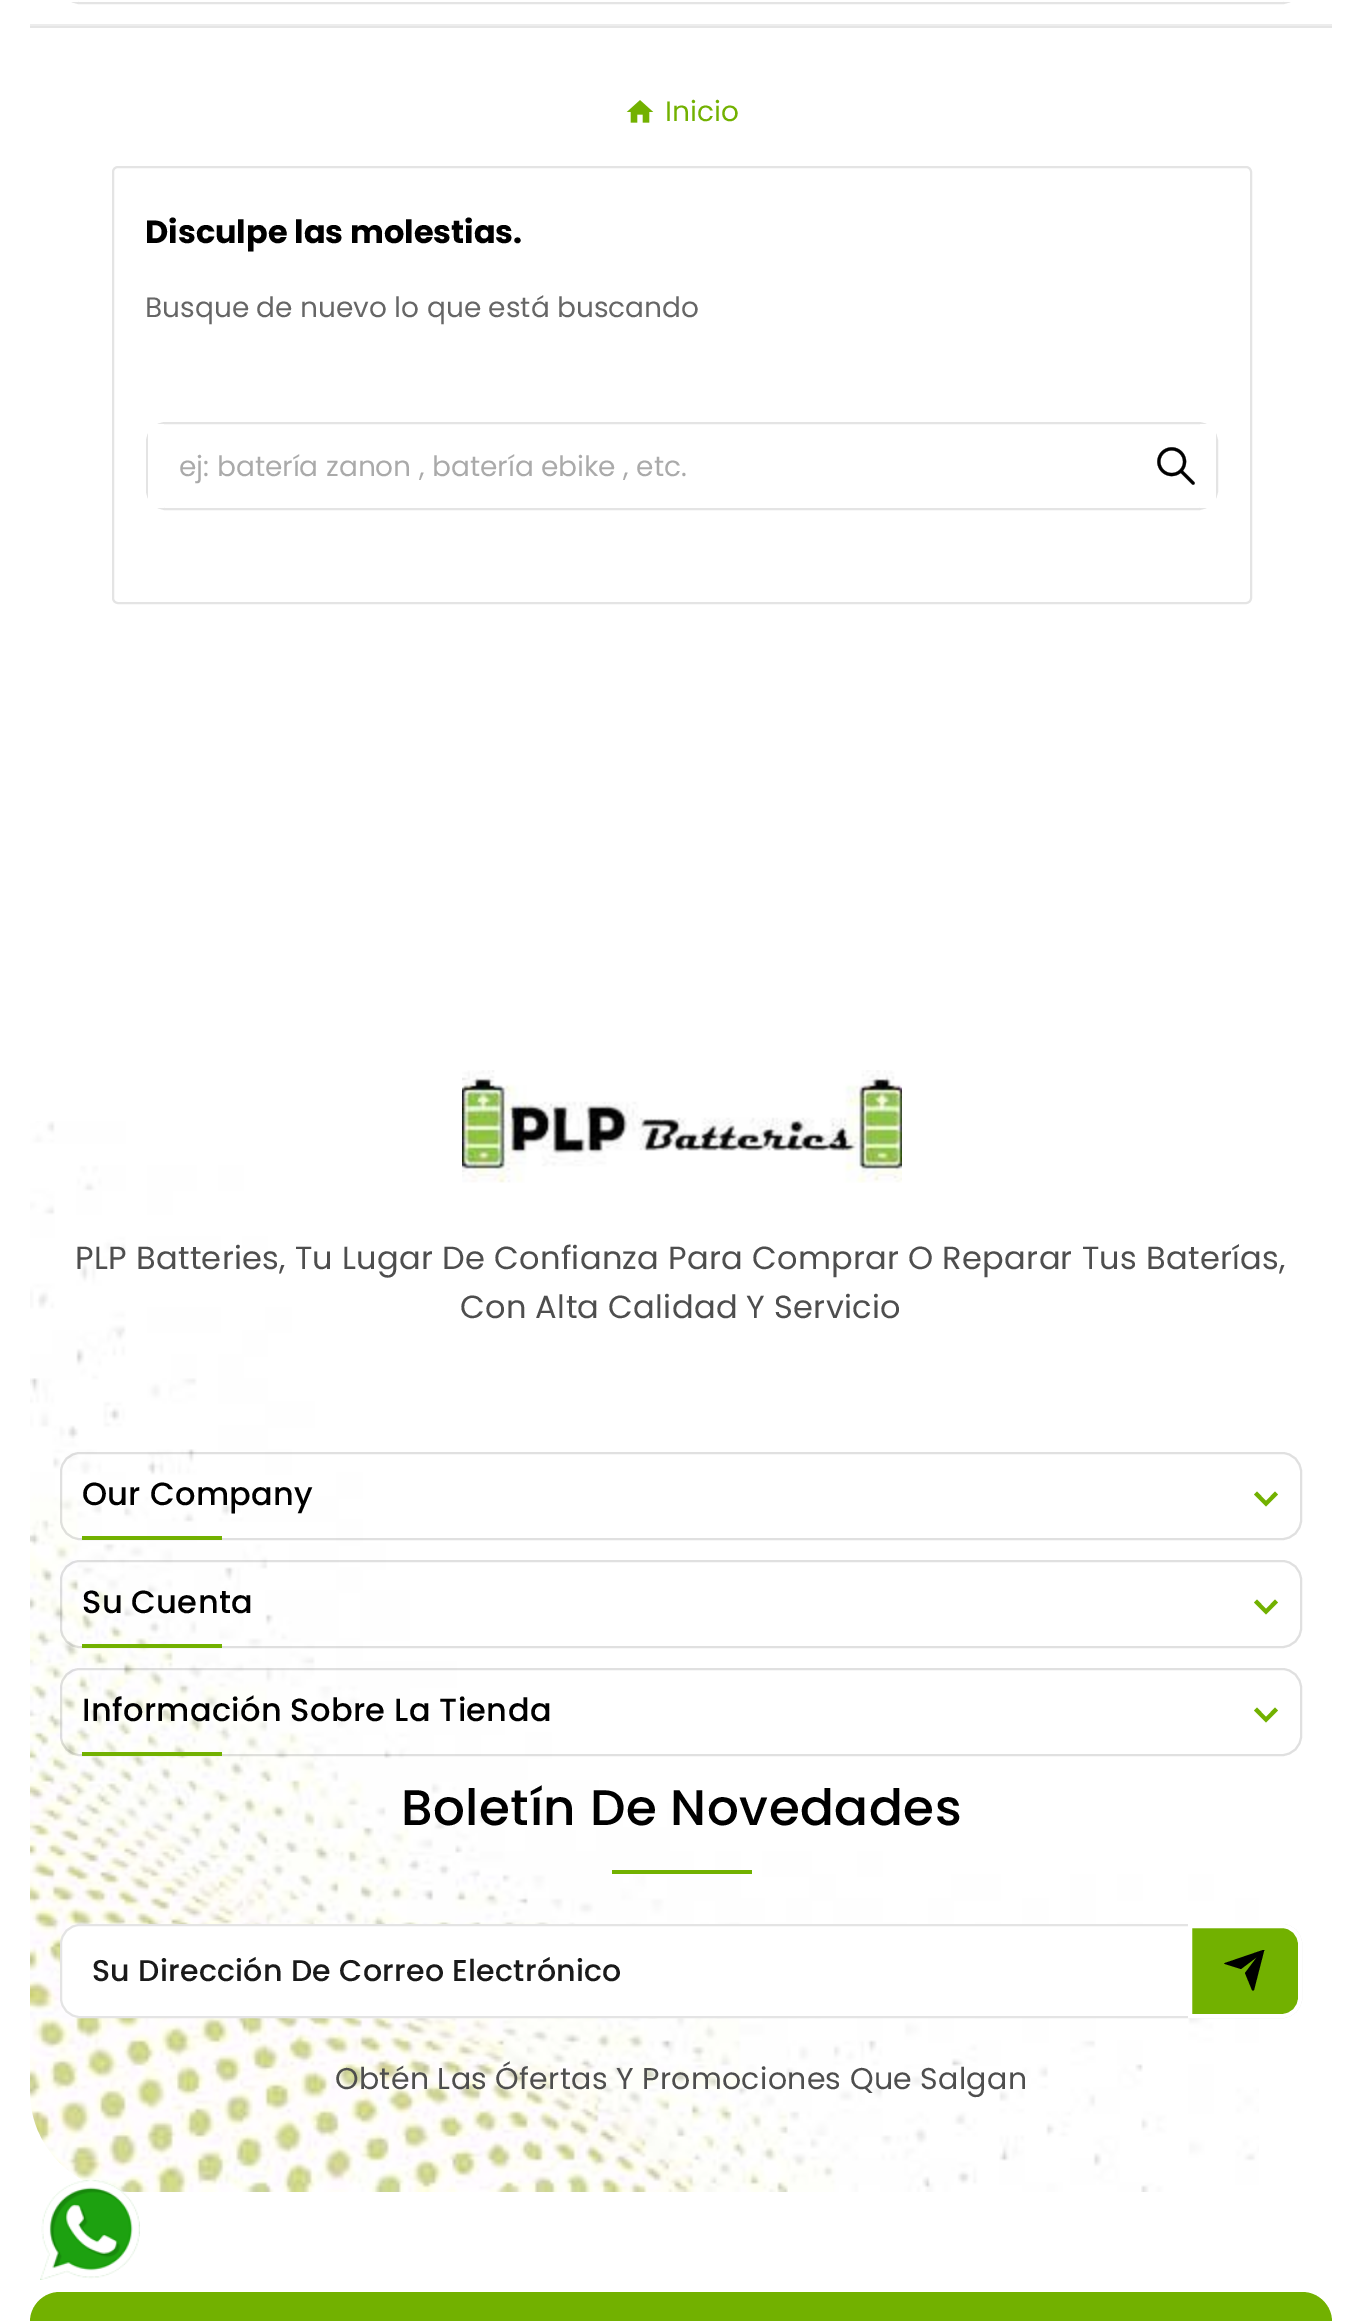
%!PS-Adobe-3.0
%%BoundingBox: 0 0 1362 2321
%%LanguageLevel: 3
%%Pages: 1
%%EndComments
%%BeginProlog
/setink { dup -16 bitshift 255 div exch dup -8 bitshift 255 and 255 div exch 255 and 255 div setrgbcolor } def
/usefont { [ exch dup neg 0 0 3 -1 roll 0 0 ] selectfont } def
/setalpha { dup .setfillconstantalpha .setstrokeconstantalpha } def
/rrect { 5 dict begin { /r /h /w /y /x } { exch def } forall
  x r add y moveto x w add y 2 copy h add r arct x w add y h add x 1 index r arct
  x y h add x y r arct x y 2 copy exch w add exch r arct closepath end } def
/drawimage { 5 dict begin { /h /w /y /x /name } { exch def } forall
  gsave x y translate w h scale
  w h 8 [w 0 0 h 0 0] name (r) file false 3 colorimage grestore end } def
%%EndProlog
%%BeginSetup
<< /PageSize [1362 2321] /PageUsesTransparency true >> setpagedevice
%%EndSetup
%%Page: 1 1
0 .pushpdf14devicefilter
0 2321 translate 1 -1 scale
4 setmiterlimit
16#FFFFFF setink
0 0 1362 2321 rectfill
16#E5E5E5 setink
30 26 1302 2 rectfill
16#EDEDED setink
30 24 1302 2 rectfill
16#E4E4E4 setink
2 setlinewidth
61 -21 1240 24 19 rrect stroke
16#FFFFFF setink
62 0 16 2 rectfill
1284 0 16 2 rectfill
(img1.raw) 626 100 28 23 drawimage
/Poppins-Regular 28 usefont
16#72B100 setink
665 121 moveto (Inicio) show
16#E4E4E4 setink
113 167 1138 436 5 rrect stroke
/Poppins-Bold 32 usefont
16#000000 setink
145 243 moveto (Disculpe las molestias.) show
/Poppins-Regular 28 usefont
16#666666 setink
145 317 moveto (Busque de nuevo lo que está buscando) show
16#E4E4E4 setink
147 423 1070 86 19 rrect stroke
16#FFFFFF setink
148 424 16 84 rectfill
16#AAAAAA setink
179 476 moveto (ej: batería zanon , batería ebike , etc.) show
16#FFFFFF setink
1200 424 16 84 rectfill
(img2.raw) 1157 447 38 38 drawimage
(img3.raw) 30 1121 1229 1071 drawimage
(img4.raw) 462 1070 440 113 drawimage
/Poppins-Regular 32 usefont
16#4E4E4E setink
75 1269 moveto 0.32 0 (PLP Batteries, Tu Lugar De Confianza Para Comprar O Reparar Tus Baterías,) ashow
460 1318 moveto 0.32 0 (Con Alta Calidad Y Servicio) ashow
0.12 setalpha
16#000000 setink
61 1453 1240 86 19 rrect stroke
/Poppins-Medium 32 usefont
1 setalpha
82 1505 moveto 0.32 0 (Our Company) ashow
16#72B100 setink
82 1536 140 4 rectfill
1257 1491.5 moveto 1266 1501 lineto 1275 1491.5 lineto 1278 1494.5 lineto 1266 1506.5 lineto 1254 1494.5 lineto closepath fill
0.12 setalpha
16#000000 setink
61 1561 1240 86 19 rrect stroke
1 setalpha
82 1613 moveto 0.32 0 (Su Cuenta) ashow
16#72B100 setink
82 1644 140 4 rectfill
1257 1599.5 moveto 1266 1609 lineto 1275 1599.5 lineto 1278 1602.5 lineto 1266 1614.5 lineto 1254 1602.5 lineto closepath fill
0.12 setalpha
16#000000 setink
61 1669 1240 86 19 rrect stroke
1 setalpha
82 1721 moveto 0.32 0 (Información Sobre La Tienda) ashow
16#72B100 setink
82 1752 140 4 rectfill
1257 1707.5 moveto 1266 1717 lineto 1275 1707.5 lineto 1278 1710.5 lineto 1266 1722.5 lineto 1254 1710.5 lineto closepath fill
/Poppins-Medium 50 usefont
16#000000 setink
401 1825 moveto 0.5 0 (Boletín De Novedades) ashow
16#72B100 setink
612 1870 140 4 rectfill
16#FFFFFF setink
61 1925 1240 92 19 rrect gsave fill grestore
16#E4E4E4 setink
stroke
/Poppins-Medium 30 usefont
16#1A1A1A setink
92 1981 moveto 0.3 0 (Su Dirección De Correo Electrónico) ashow
16#72B100 setink
1190 1926 moveto 1282 1926 lineto 1292 1926 1300 1934 1300 1944 curveto 1300 1998 lineto 1300 2008 1292 2016 1282 2016 curveto 1190 2016 lineto closepath gsave fill grestore
16#FFFFFF setink
4 setlinewidth
stroke
16#000000 setink
1225 1964 moveto 1224 1964 1224 1963 1225 1963 curveto 1263 1950 lineto 1264 1950 1265 1950 1264 1951 curveto 1254 1990 lineto 1253 1991 1253 1991 1252 1990 curveto 1245 1973 lineto 1257 1957 lineto 1241 1969 lineto closepath fill
/Poppins-Regular 30 usefont
16#4E4E4E setink
335 2089 moveto 0.3 0 (Obtén Las Ófertas Y Promociones Que Salgan) ashow
(img5.raw) 40 2180 100 100 drawimage
16#72B100 setink
30 2292 1302 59 30 rrect fill
.poppdf14devicefilter showpage
%%EOF
